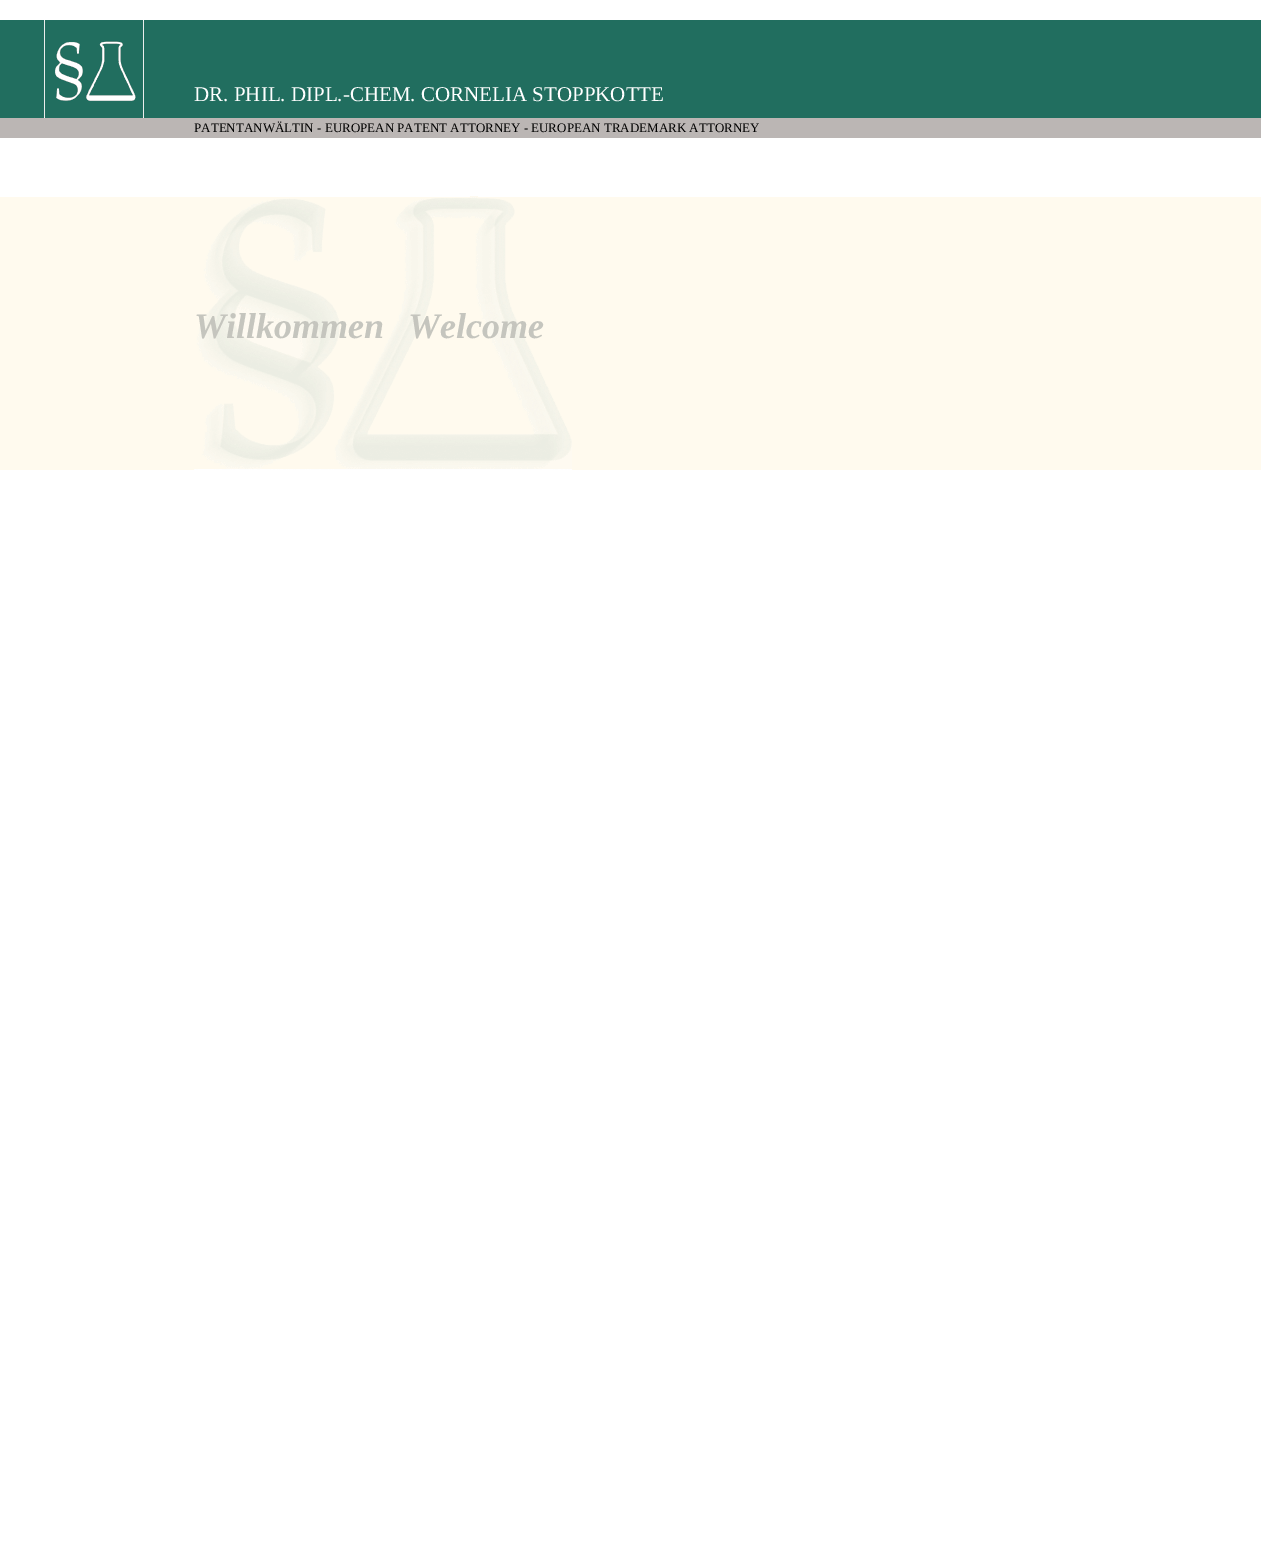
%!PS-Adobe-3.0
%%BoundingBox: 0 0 1261 1565
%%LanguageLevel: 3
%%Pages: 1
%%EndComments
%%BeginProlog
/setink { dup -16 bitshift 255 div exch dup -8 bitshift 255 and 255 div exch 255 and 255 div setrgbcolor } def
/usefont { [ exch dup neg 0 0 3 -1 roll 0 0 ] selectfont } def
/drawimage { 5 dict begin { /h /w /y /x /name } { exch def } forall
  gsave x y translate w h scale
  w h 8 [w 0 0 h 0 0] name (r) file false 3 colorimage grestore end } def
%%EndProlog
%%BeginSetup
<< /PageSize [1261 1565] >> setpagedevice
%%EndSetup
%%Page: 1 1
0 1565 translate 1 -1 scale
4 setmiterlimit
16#FFFFFF setink
0 0 1261 1565 rectfill
16#FFFAEE setink
0 197 1261 273 rectfill
16#216E5F setink
0 20 1261 98 rectfill
(img1.raw) 44 20 100 98 drawimage
/LiberationSerif-Regular 21 usefont
16#FFFFFF setink
194 101 moveto (DR. PHIL. DIPL.-CHEM. CORNELIA STOPPKOTTE) show
16#BBB6B4 setink
0 118 1261 20 rectfill
/LiberationSerif-Regular 13 usefont
16#000000 setink
194 132 moveto (PATENTANWÄLTIN - EUROPEAN PATENT ATTORNEY - EUROPEAN TRADEMARK ATTORNEY) show
(img2.raw) 194 196 378 274 drawimage
/LiberationSerif-BoldItalic 36 usefont
16#C5C5BE setink
194 338 moveto (Willkommen) show
408 338 moveto (Welcome) show
showpage
%%EOF
